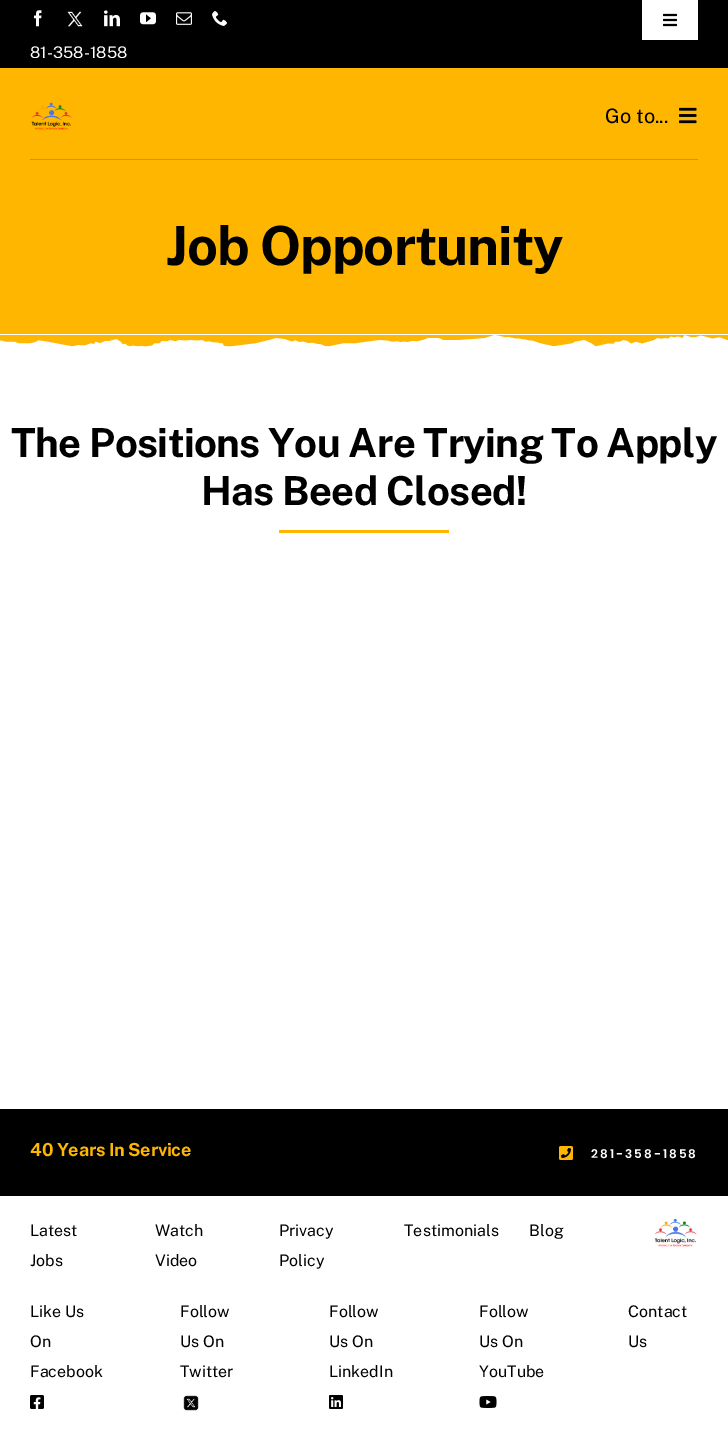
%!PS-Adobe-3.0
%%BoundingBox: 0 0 728 1436
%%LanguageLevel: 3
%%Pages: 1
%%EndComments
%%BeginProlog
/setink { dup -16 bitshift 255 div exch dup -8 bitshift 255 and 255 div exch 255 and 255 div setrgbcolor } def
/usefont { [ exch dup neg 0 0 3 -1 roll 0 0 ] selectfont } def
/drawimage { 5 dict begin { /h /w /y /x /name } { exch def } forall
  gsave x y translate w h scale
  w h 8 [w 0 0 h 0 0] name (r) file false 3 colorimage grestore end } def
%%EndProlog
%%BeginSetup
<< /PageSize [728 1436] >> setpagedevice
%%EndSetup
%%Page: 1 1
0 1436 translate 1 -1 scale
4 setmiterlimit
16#FFFFFF setink
0 0 728 1436 rectfill
16#000000 setink
0 0 728 68 rectfill
16#FFFFFF setink
642 0 56 40 rectfill
(img1.raw) 663 13 14 14 drawimage
(img2.raw) 34 10 8 17 drawimage
(img3.raw) 67 11 16 16 drawimage
(img4.raw) 104 10 16 17 drawimage
(img5.raw) 140 12 16 13 drawimage
(img6.raw) 176 12 16 13 drawimage
(img7.raw) 212 11 15 15 drawimage
gsave
30 10 205 48 rectclip
/PublicSans-Regular 16 usefont
30 58 moveto (81-358-1858) show
grestore
16#FFB600 setink
0 68 728 279 rectfill
(img8.raw) 31 102 41 28 drawimage
/PublicSans-Regular 20 usefont
16#000000 setink
605 123 moveto (Go to...) show
(img9.raw) 679 107 18 17 drawimage
16#D49700 setink
30 159 668 1 rectfill
/PublicSans-Bold 54 usefont
16#000000 setink
166 265 moveto -1 0 (Job Opportunity) ashow
(img10.raw) 0 334 728 30 drawimage
/PublicSans-Bold 40 usefont
11 457 moveto -0.6 0 (The Positions You Are Trying To Apply) ashow
201 505 moveto -0.6 0 (Has Beed Closed!) ashow
16#FFB600 setink
279 530 170 3 rectfill
16#000000 setink
0 1109 728 87 rectfill
/PublicSans-Bold 18 usefont
16#FFB600 setink
30 1156 moveto -0.25 0 (40 Years In Service) ashow
(img11.raw) 559 1146 14 14 drawimage
/Poppins-SemiBold 12 usefont
16#FFFFFF setink
591 1158 moveto 2 0 (281-358-1858) ashow
/PublicSans-Regular 16 usefont
16#000000 setink
[
    [(Latest) 30 1236]
    [(Jobs) 30 1266]
    [(Watch) 155 1236]
    [(Video) 155 1266]
    [(Privacy) 279 1236]
    [(Policy) 279 1266]
    [(Testimonials) 404 1236]
    [(Blog) 529 1236]
] { aload pop moveto show } forall
(img12.raw) 654 1219 43 28 drawimage
[
    [(Like Us) 30 1317]
    [(On) 30 1347]
    [(Facebook) 30 1377]
] { aload pop moveto show } forall
(img13.raw) 30 1395 14 14 drawimage
[
    [(Follow) 180 1317]
    [(Us On) 180 1347]
    [(Twitter) 180 1377]
] { aload pop moveto show } forall
(img14.raw) 183 1395 16 16 drawimage
[
    [(Follow) 329 1317]
    [(Us On) 329 1347]
    [(LinkedIn) 329 1377]
] { aload pop moveto show } forall
(img15.raw) 329 1395 14 14 drawimage
[
    [(Follow) 479 1317]
    [(Us On) 479 1347]
    [(YouTube) 479 1377]
] { aload pop moveto show } forall
(img16.raw) 479 1396 18 12 drawimage
628 1317 moveto (Contact) show
628 1347 moveto (Us) show
showpage
%%EOF
